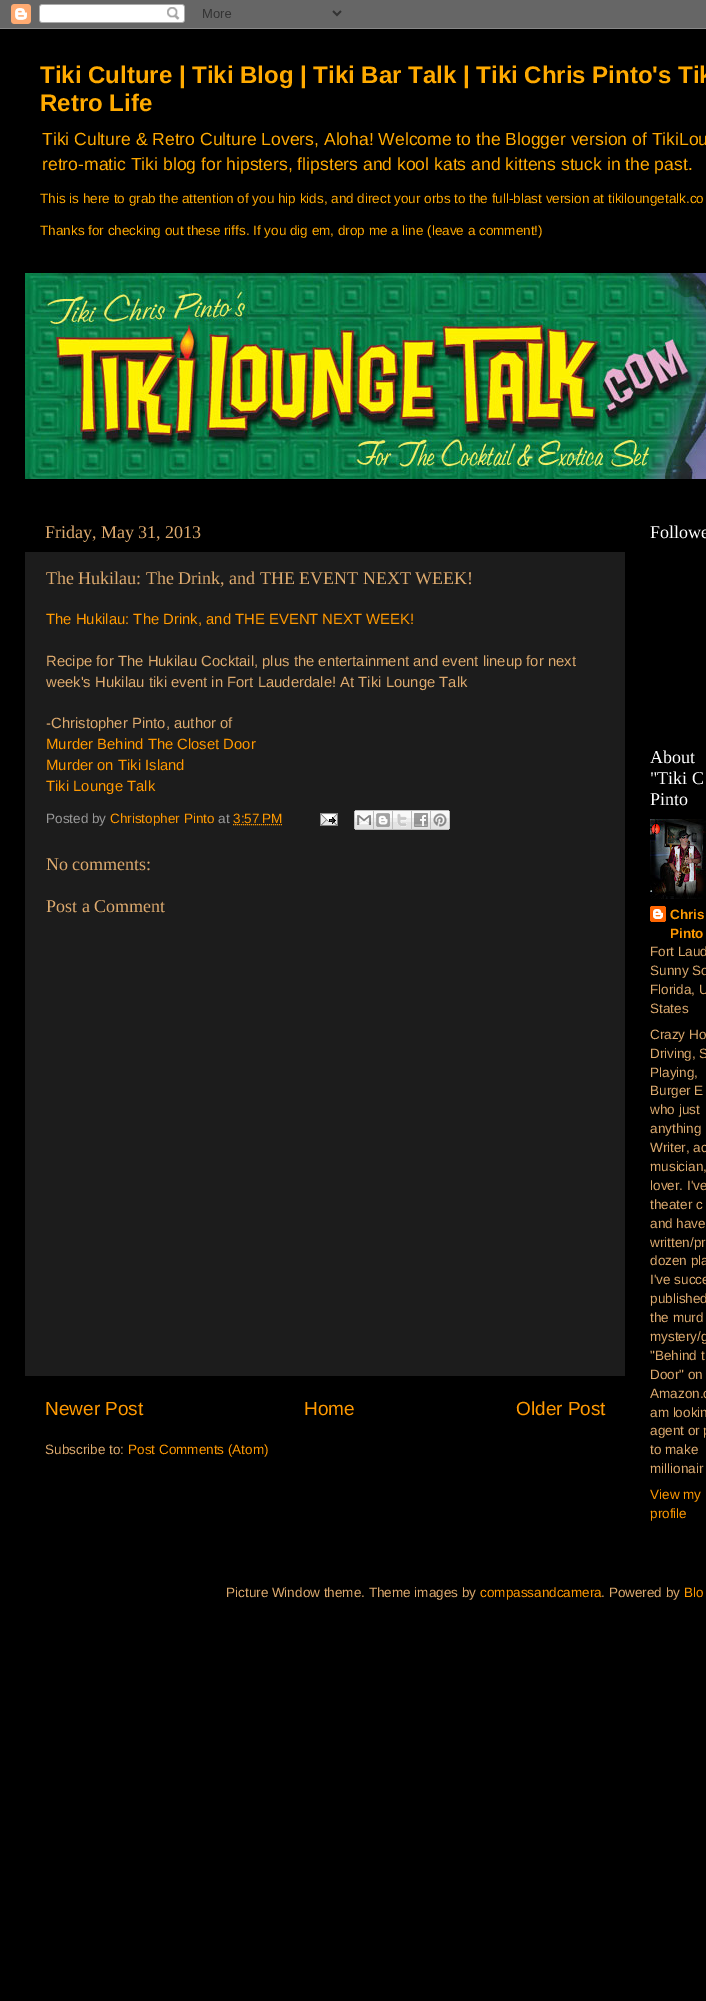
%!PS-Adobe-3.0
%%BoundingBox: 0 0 706 2001
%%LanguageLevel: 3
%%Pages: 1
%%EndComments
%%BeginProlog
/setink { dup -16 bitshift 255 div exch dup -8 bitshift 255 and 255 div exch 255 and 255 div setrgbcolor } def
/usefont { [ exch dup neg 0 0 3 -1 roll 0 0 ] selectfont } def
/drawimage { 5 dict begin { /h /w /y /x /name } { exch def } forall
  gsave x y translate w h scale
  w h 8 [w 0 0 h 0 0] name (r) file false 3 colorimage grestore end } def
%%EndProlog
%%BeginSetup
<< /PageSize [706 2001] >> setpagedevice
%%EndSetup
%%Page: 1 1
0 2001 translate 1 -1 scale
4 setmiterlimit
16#000000 setink
0 0 706 2001 rectfill
(img1.raw) 0 0 706 29 drawimage
/LiberationSans-Bold 24 usefont
16#FFAA00 setink
40 83 moveto (Tiki Culture | Tiki Blog | Tiki Bar Talk | Tiki Chris Pinto's Tik) show
40 111 moveto (Retro Life) show
/LiberationSans-Regular 17.55 usefont
42 145 moveto (Tiki Culture & Retro Culture Lovers, Aloha! Welcome to the Blogger version of TikiLou) show
42 170 moveto (retro-matic Tiki blog for hipsters, flipsters and kool kats and kittens stuck in the past.) show
/LiberationSans-Regular 13.5 usefont
40 203 moveto (This is here to grab the attention of you hip kids, and direct your orbs to the full-blast version at tikiloungetalk.co) show
40 235 moveto (Thanks for checking out these riffs. If you dig em, drop me a line \(leave a comment!\)) show
(img2.raw) 25 273 681 206 drawimage
/LiberationSerif-Regular 18 usefont
16#DDAA6E setink
45 538 moveto (Friday, May 31, 2013) show
16#1C1C1C setink
25 552 600 824 rectfill
16#DDAA6E setink
46 584 moveto (The Hukilau: The Drink, and THE EVENT NEXT WEEK!) show
/LiberationSans-Regular 14.85 usefont
16#FF9900 setink
46 624 moveto (The Hukilau: The Drink, and THE EVENT NEXT WEEK!) show
16#DDAA6E setink
[
    [(Recipe for The Hukilau Cocktail, plus the entertainment and event lineup for next) 46 666]
    [(week's Hukilau tiki event in Fort Lauderdale! At Tiki Lounge Talk) 46 687]
    [(-Christopher Pinto, author of) 46 728]
] { aload pop moveto show } forall
16#FF9900 setink
[
    [(Murder Behind The Closet Door) 46 749]
    [(Murder on Tiki Island) 46 770]
    [(Tiki Lounge Talk) 46 791]
] { aload pop moveto show } forall
/LiberationSans-Regular 13.5 usefont
16#999999 setink
46 823 moveto (Posted by) show
16#FF9900 setink
110 823 moveto (Christopher Pinto) show
16#999999 setink
218 823 moveto (at) show
16#FF9900 setink
233 823 moveto (3:57 PM) show
[1 1] 0 setdash
233 824.5 moveto 282 824.5 lineto stroke
(img3.raw) 320 813 18 13 drawimage
(img4.raw) 354 810 20 20 drawimage
(img5.raw) 374 810 19 20 drawimage
(img6.raw) 393 810 19 20 drawimage
(img7.raw) 412 810 19 20 drawimage
(img8.raw) 431 810 19 20 drawimage
/LiberationSerif-Regular 18 usefont
16#DDAA6E setink
46 870 moveto (No comments:) show
46 912 moveto (Post a Comment) show
/LiberationSans-Regular 19 usefont
16#FF9900 setink
[
    [(Newer Post) 45 1415]
    [(Home) 304 1415]
    [(Older Post) 516 1415]
] { aload pop moveto show } forall
/LiberationSans-Regular 13.5 usefont
16#DDAA6E setink
45 1454 moveto (Subscribe to:) show
16#FF9900 setink
128 1454 moveto (Post Comments \(Atom\)) show
/LiberationSerif-Regular 18 usefont
16#FFFFFF setink
[
    [(Followe) 650 538]
    [(About) 650 763]
    [("Tiki C) 650 784]
    [(Pinto) 650 805]
] { aload pop moveto show } forall
(img9.raw) 650 819 56 80 drawimage
(img10.raw) 650 906 16 16 drawimage
/LiberationSans-Bold 13.5 usefont
16#FF9900 setink
670 919 moveto (Chris) show
670 938 moveto (Pinto) show
/LiberationSans-Regular 13.5 usefont
16#DDAA6E setink
[
    [(Fort Laud) 650 956]
    [(Sunny So) 650 975]
    [(Florida, U) 650 994]
    [(States) 650 1013]
    [(Crazy Ho) 650 1039]
    [(Driving, S) 650 1058]
    [(Playing,) 650 1077]
    [(Burger E) 650 1095]
    [(who just) 650 1114]
    [(anything) 650 1133]
    [(Writer, ac) 650 1152]
    [(musician,) 650 1171]
    [(lover. I've) 650 1190]
    [(theater c) 650 1209]
    [(and have) 650 1228]
    [(written/pr) 650 1247]
    [(dozen pla) 650 1265]
    [(I've succe) 650 1284]
    [(published) 650 1303]
    [(the murd) 650 1322]
    [(mystery/g) 650 1341]
    [("Behind t) 650 1360]
    [(Door" on) 650 1379]
    [(Amazon.c) 650 1398]
    [(am lookin) 650 1417]
    [(agent or p) 650 1435]
    [(to make) 650 1454]
    [(millionair) 650 1473]
] { aload pop moveto show } forall
16#FF9900 setink
650 1499 moveto (View my) show
650 1518 moveto (profile) show
16#DDAA6E setink
226 1597 moveto (Picture Window theme. Theme images by) show
16#FF9900 setink
480 1597 moveto (compassandcamera) show
16#DDAA6E setink
601 1597 moveto (. Powered by) show
16#FF9900 setink
684 1597 moveto (Blo) show
showpage
%%EOF
